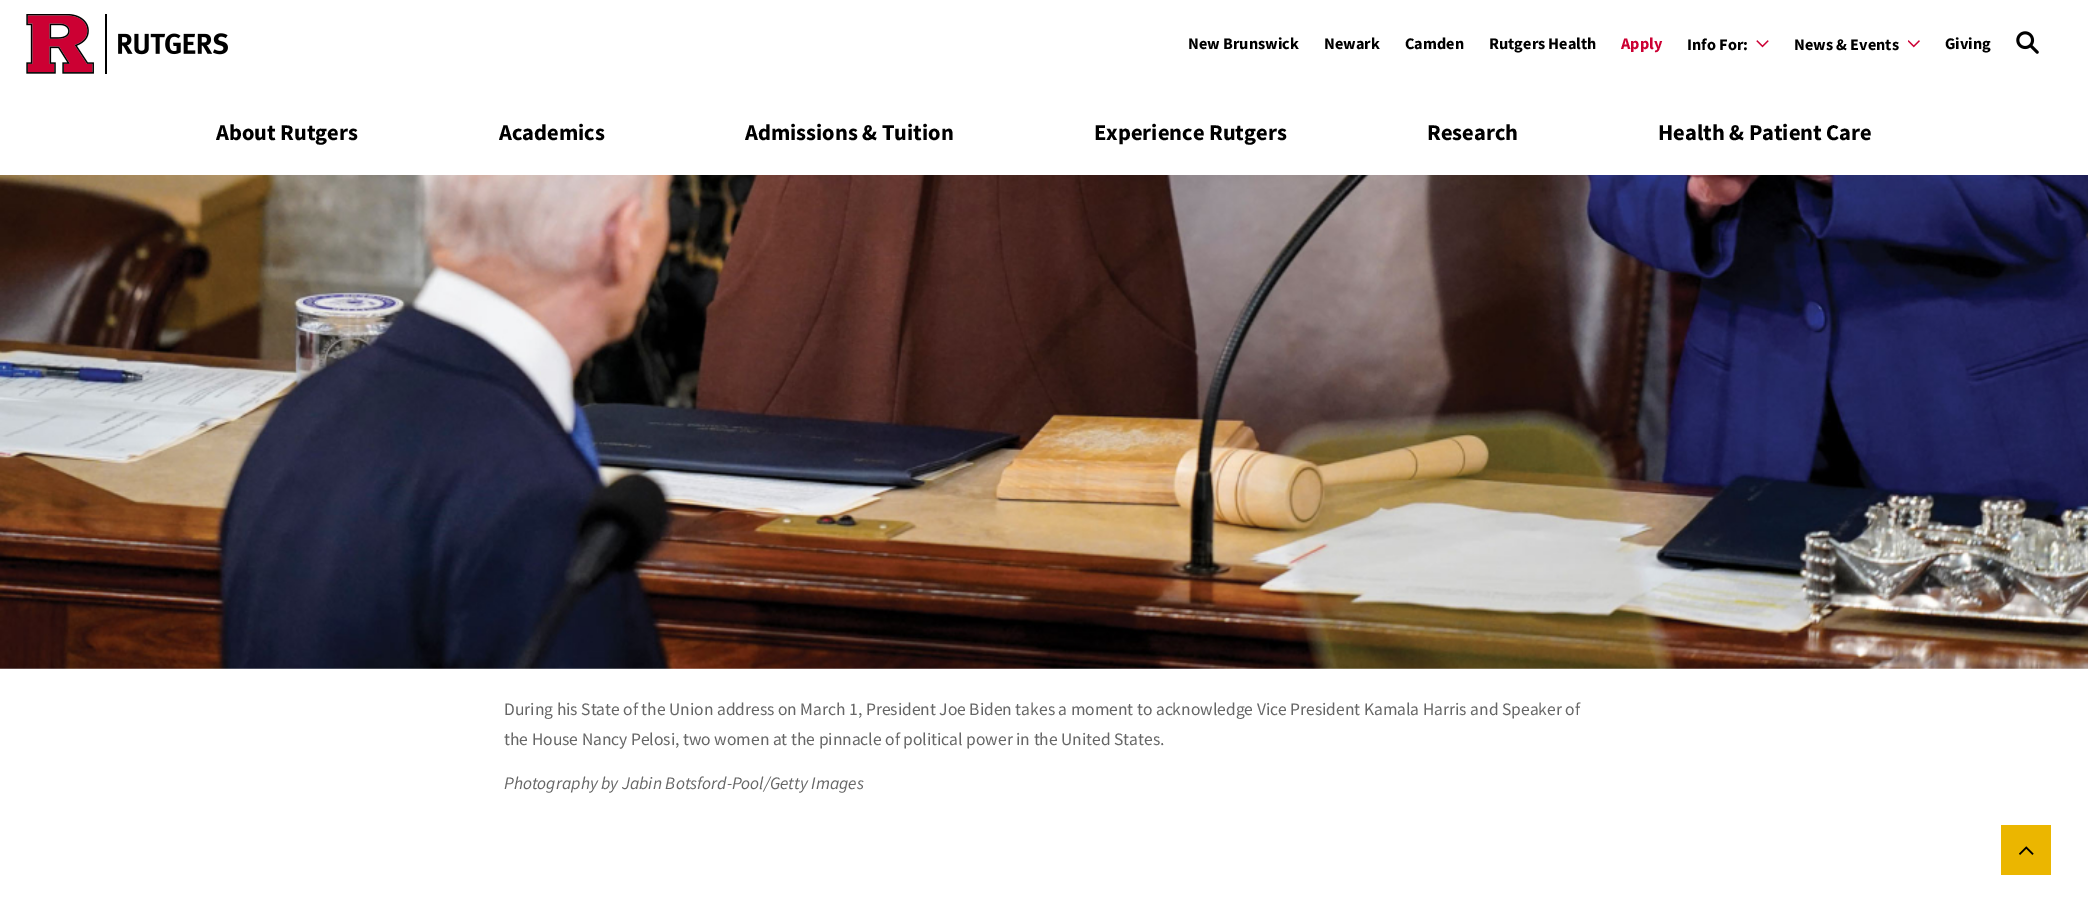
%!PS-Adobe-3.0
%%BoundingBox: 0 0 2088 912
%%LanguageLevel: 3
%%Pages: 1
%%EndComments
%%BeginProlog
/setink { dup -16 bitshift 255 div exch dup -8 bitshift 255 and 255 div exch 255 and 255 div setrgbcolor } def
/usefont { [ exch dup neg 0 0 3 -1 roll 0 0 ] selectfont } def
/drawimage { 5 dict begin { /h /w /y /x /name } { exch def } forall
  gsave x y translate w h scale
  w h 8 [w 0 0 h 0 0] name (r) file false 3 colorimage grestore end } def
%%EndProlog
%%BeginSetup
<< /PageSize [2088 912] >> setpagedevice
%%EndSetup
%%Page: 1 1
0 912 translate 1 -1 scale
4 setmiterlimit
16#FFFFFF setink
0 0 2088 912 rectfill
(img1.raw) 26 14 202 60 drawimage
/SourceSansPro-Bold 16.25 usefont
16#000000 setink
[
    [(New Brunswick) 1188 49]
    [(Newark) 1324 49]
    [(Camden) 1405 49]
    [(Rutgers Health) 1489 49]
] { aload pop moveto show } forall
16#CC0033 setink
1621 49 moveto (Apply) show
16#000000 setink
1687 50 moveto (Info For:) show
(img2.raw) 1756 40 13 8 drawimage
1794 50 moveto (News & Events) show
(img3.raw) 1908 40 12 8 drawimage
1945 49 moveto (Giving) show
(img4.raw) 2016 31 23 23 drawimage
/SourceSansPro-Bold 22.5 usefont
[
    [(About Rutgers) 216 140]
    [(Academics) 499 140]
    [(Admissions & Tuition) 745 140]
    [(Experience Rutgers) 1094 140]
    [(Research) 1427 140]
    [(Health & Patient Care) 1658 140]
] { aload pop moveto show } forall
(img5.raw) 0 175 2088 494 drawimage
/SourceSansPro-Regular 17.5 usefont
16#666666 setink
504 715 moveto (During his State of the Union address on March 1, President Joe Biden takes a moment to acknowledge Vice President Kamala Harris and Speaker of) show
504 745 moveto (the House Nancy Pelosi, two women at the pinnacle of political power in the United States.) show
/SourceSansPro-Italic 17.5 usefont
504 789 moveto (Photography by Jabin Botsford-Pool/Getty Images) show
16#EBB600 setink
2001 825 50 50 rectfill
(img6.raw) 2019 846 15 9 drawimage
showpage
%%EOF
